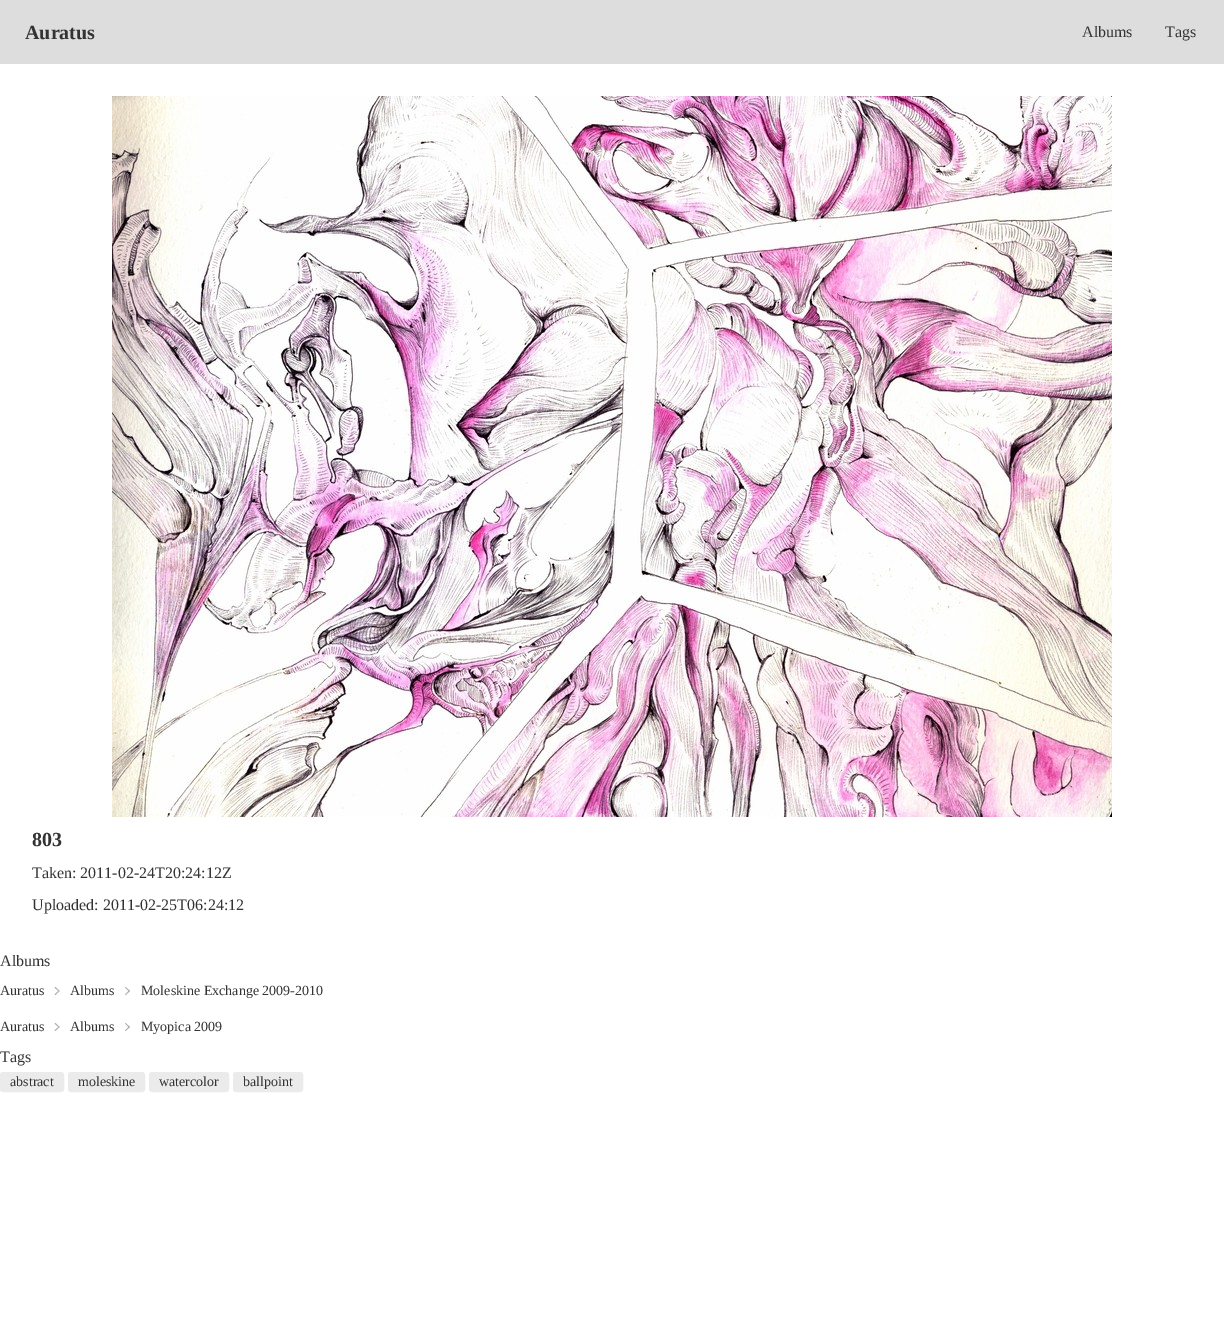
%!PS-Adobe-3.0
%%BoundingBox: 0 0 1224 1322
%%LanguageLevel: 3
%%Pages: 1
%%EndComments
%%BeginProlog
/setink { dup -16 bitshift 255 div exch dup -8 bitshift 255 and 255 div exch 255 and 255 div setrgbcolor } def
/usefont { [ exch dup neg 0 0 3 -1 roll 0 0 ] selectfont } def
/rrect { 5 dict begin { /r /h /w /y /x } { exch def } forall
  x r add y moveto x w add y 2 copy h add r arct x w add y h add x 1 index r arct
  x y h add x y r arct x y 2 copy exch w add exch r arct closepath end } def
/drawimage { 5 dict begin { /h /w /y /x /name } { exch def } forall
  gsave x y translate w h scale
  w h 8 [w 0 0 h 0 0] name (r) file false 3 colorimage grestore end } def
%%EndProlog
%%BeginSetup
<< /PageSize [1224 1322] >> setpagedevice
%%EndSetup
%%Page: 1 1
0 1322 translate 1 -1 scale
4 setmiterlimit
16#FFFFFF setink
0 0 1224 1322 rectfill
16#DDDDDD setink
0 0 1224 64 rectfill
/LiberationSerif-Bold 20 usefont
16#333333 setink
25 39 moveto (Auratus) show
/LiberationSerif-Regular 16 usefont
1082 37 moveto (Albums) show
1165 37 moveto (Tags) show
(img1.raw) 112 96 1000 721 drawimage
/LiberationSerif-Bold 20 usefont
32 846 moveto (803) show
/LiberationSerif-Regular 16 usefont
[
    [(Taken: 2011-02-24T20:24:12Z) 32 878]
    [(Uploaded: 2011-02-25T06:24:12) 32 910]
    [(Albums) 0 966]
] { aload pop moveto show } forall
/LiberationSerif-Regular 14 usefont
0 995 moveto (Auratus) show
16#ADADAD setink
55.5 987 moveto 59.5 991 lineto 59 991.5 lineto 54.5 987.5 lineto closepath fill
59 990.5 moveto 59.5 991 lineto 55.5 995 lineto 54.5 994.5 lineto closepath fill
16#333333 setink
70 995 moveto (Albums) show
16#ADADAD setink
125.5 987 moveto 130 991 lineto 129 991.5 lineto 125 987.5 lineto closepath fill
129 990.5 moveto 130 991 lineto 125.5 995 lineto 125 994.5 lineto closepath fill
16#333333 setink
141 995 moveto (Moleskine Exchange 2009-2010) show
0 1031 moveto (Auratus) show
16#ADADAD setink
55.5 1023 moveto 59.5 1027 lineto 59 1027.5 lineto 54.5 1023.5 lineto closepath fill
59 1026.5 moveto 59.5 1027 lineto 55.5 1031 lineto 54.5 1030.5 lineto closepath fill
16#333333 setink
70 1031 moveto (Albums) show
16#ADADAD setink
125.5 1023 moveto 130 1027 lineto 129 1027.5 lineto 125 1023.5 lineto closepath fill
129 1026.5 moveto 130 1027 lineto 125.5 1031 lineto 125 1030.5 lineto closepath fill
16#333333 setink
141 1031 moveto (Myopica 2009) show
/LiberationSerif-Regular 16 usefont
0 1062 moveto (Tags) show
16#EBEBEB setink
0.5 1072.5 63 19 2.5 rrect gsave fill grestore
stroke
/LiberationSerif-Regular 14 usefont
16#333333 setink
10 1086 moveto (abstract) show
16#EBEBEB setink
68.5 1072.5 76 19 2.5 rrect gsave fill grestore
stroke
16#333333 setink
78 1086 moveto (moleskine) show
16#EBEBEB setink
149.5 1072.5 79 19 2.5 rrect gsave fill grestore
stroke
16#333333 setink
159 1086 moveto (watercolor) show
16#EBEBEB setink
233.5 1072.5 69 19 2.5 rrect gsave fill grestore
stroke
16#333333 setink
243 1086 moveto (ballpoint) show
showpage
%%EOF
